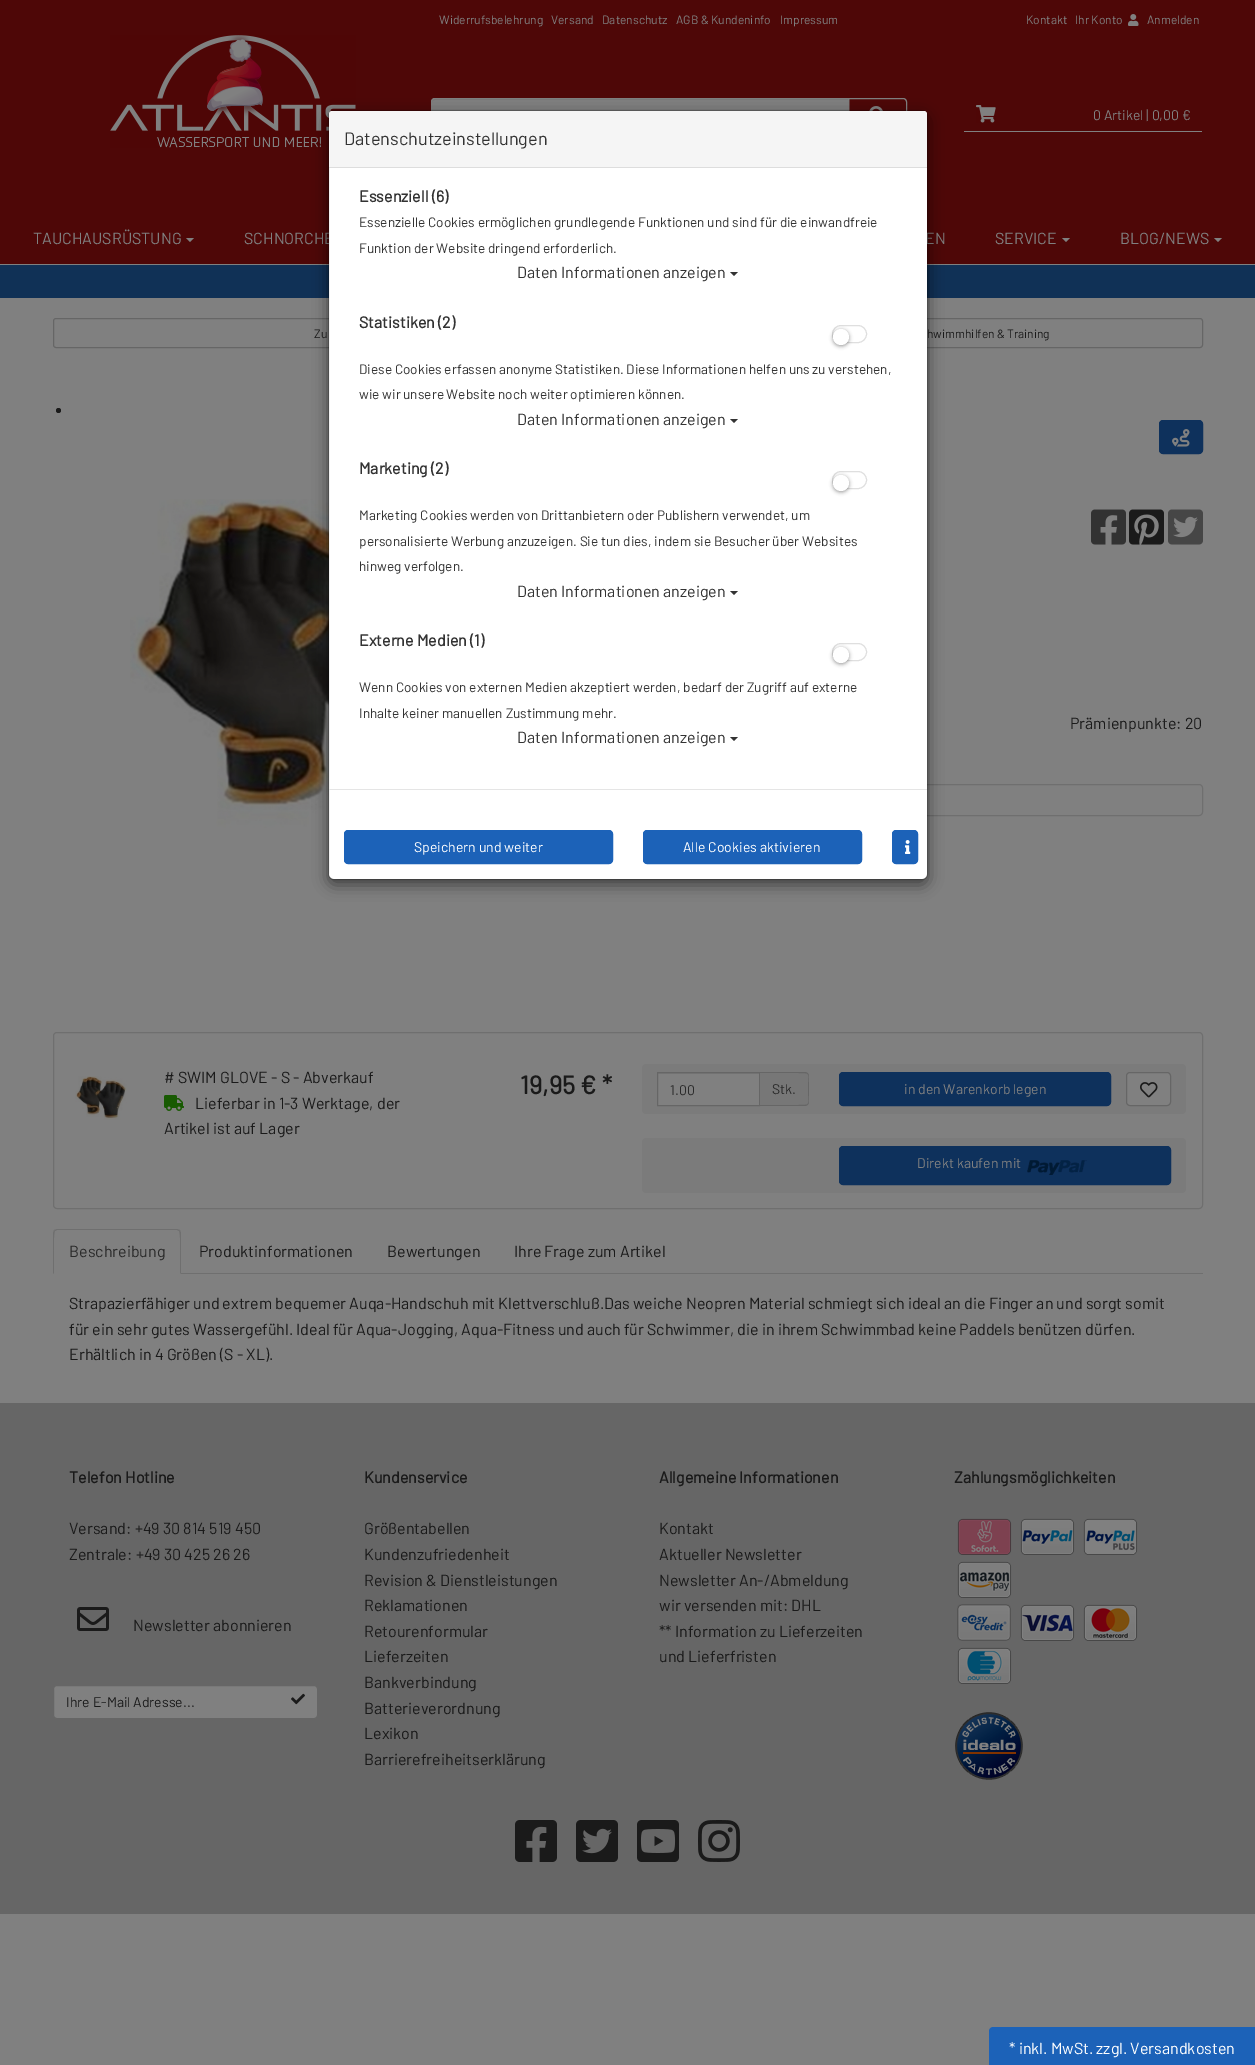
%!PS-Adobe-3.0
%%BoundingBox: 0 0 1255 2065
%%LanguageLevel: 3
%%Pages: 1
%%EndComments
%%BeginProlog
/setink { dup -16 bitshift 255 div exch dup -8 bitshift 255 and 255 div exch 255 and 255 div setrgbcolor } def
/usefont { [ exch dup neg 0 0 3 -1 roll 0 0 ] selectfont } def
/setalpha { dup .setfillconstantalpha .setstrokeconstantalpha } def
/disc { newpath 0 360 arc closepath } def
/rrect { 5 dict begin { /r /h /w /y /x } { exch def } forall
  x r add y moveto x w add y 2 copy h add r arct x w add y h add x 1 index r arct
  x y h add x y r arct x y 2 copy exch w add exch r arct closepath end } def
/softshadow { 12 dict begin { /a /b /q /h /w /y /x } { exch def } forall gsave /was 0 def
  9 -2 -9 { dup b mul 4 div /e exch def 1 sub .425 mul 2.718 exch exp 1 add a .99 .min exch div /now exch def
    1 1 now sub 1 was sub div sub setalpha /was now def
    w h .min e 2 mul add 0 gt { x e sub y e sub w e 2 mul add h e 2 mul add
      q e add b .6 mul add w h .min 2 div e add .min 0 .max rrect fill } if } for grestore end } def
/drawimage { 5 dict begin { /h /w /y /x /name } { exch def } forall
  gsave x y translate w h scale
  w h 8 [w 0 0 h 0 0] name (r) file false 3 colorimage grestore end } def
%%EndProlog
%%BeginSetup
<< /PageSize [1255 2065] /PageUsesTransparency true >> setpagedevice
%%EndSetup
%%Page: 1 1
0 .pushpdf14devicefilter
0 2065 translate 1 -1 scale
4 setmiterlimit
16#808080 setink
0 0 1255 2065 rectfill
16#4E0707 setink
0 0 1255 264 rectfill
/Barlow-Regular 12 usefont
16#808080 setink
[
    [(Widerrufsbelehrung) 439 24]
    [(Versand) 551 24]
    [(Datenschutz) 602 24]
    [(AGB & Kundeninfo) 676 24]
    [(Impressum) 780 24]
    [(Kontakt) 1026 24]
    [(Ihr Konto) 1075 24]
] { aload pop moveto show } forall
(img1.raw) 1128 14 11 12 drawimage
1147 24 moveto (Anmelden) show
(img2.raw) 110 35 246 113 drawimage
435 98 moveto 849 98 lineto 849 132 lineto 435 132 lineto 433 132 431 130 431 128 curveto 431 102 lineto 431 100 433 98 435 98 curveto closepath fill
16#767676 setink
435 100 moveto 848 100 lineto 848 99 lineto 435 99 lineto 433 99 432 101 432 103 curveto 432 101 433 100 435 100 curveto closepath fill
16#808080 setink
435 98.5 moveto 848.5 98.5 lineto 848.5 131.5 lineto 435 131.5 lineto 433 131.5 431.5 130 431.5 128 curveto 431.5 102 lineto 431.5 100 433 98.5 435 98.5 curveto closepath stroke
848.5 98.5 moveto 903 98.5 lineto 905 98.5 906.5 100 906.5 102 curveto 906.5 128 lineto 906.5 130 905 131.5 903 131.5 curveto 848.5 131.5 lineto closepath stroke
(img3.raw) 869 106 14 5 drawimage
964 131 238 1 rectfill
(img4.raw) 976 105 20 18 drawimage
/Barlow-Regular 14 usefont
1093 120 moveto (0 Artikel | 0,00 €) show
/Barlow-Regular 16 usefont
33 244 moveto (TAUCHAUSRÜSTUNG) show
186 238 moveto 194 238 lineto 190 242 lineto closepath fill
[
    [(SCHNORCHE) 244 244]
    [(EN) 925 244]
    [(SERVICE) 995 244]
] { aload pop moveto show } forall
1062 238 moveto 1070 238 lineto 1066 242 lineto closepath fill
1120 244 moveto (BLOG/NEWS) show
1214 238 moveto 1222 238 lineto 1218 242 lineto closepath fill
16#103156 setink
0 265 1255 33 rectfill
16#666666 setink
53.5 318.5 559 29 2.5 rrect stroke
643.5 318.5 559 29 2.5 rrect stroke
(img6.raw) 130 499 199 356 drawimage
16#6F6F6F setink
643.5 784.5 559 31 3.5 rrect stroke
16#000000 setink
328 115 600 770 6 7.5 0.5 softshadow
16#FFFFFF setink
329 111 598 768 5 rrect fill
0.2 setalpha
16#000000 setink
328.5 110.5 599 769 5.5 rrect stroke
1 setalpha
16#F5F5F5 setink
332 111 moveto 924 111 lineto 925.5 111 927 112.5 927 114 curveto 927 168 lineto 329 168 lineto 329 114 lineto 329 112.5 330.5 111 332 111 curveto closepath fill
16#DDDDDD setink
329 167 598 1 rectfill
/Barlow-Regular 18 usefont
16#333333 setink
344 145 moveto (Datenschutzeinstellungen) show
/Barlow-Bold 16 usefont
359 202 moveto (Essenziell \(6\)) show
/Barlow-Regular 13.6 usefont
359 227 moveto (Essenzielle Cookies ermöglichen grundlegende Funktionen und sind für die einwandfreie) show
359 253 moveto (Funktion der Website dringend erforderlich.) show
/Barlow-Regular 16 usefont
517 278 moveto (Daten Informationen anzeigen) show
730 272 moveto 738 272 lineto 734 276 lineto closepath fill
/Barlow-Bold 16 usefont
359 328 moveto (Statistiken \(2\)) show
16#DFDFDF setink
832.5 325.5 34 17 8.5 rrect stroke
16#000000 setink
833 330 16 16 8 2 0.4 softshadow
16#FFFFFF setink
841 337 8 disc fill
/Barlow-Regular 13.6 usefont
16#333333 setink
359 374 moveto (Diese Cookies erfassen anonyme Statistiken. Diese Informationen helfen uns zu verstehen,) show
359 399 moveto (wie wir unsere Website noch weiter optimieren können.) show
/Barlow-Regular 16 usefont
517 425 moveto (Daten Informationen anzeigen) show
730 419 moveto 738 419 lineto 734 423 lineto closepath fill
/Barlow-Bold 16 usefont
359 474 moveto (Marketing \(2\)) show
16#DFDFDF setink
832.5 471.5 34 17 8.5 rrect stroke
16#000000 setink
833 476 16 16 8 2 0.4 softshadow
16#FFFFFF setink
841 483 8 disc fill
/Barlow-Regular 13.6 usefont
16#333333 setink
[
    [(Marketing Cookies werden von Drittanbietern oder Publishern verwendet, um) 359 520]
    [(personalisierte Werbung anzuzeigen. Sie tun dies, indem sie Besucher über Websites) 359 546]
    [(hinweg verfolgen.) 359 571]
] { aload pop moveto show } forall
/Barlow-Regular 16 usefont
517 597 moveto (Daten Informationen anzeigen) show
730 591 moveto 738 591 lineto 734 595 lineto closepath fill
/Barlow-Bold 16 usefont
359 646 moveto (Externe Medien \(1\)) show
16#DFDFDF setink
832.5 643.5 34 17 8.5 rrect stroke
16#000000 setink
833 648 16 16 8 2 0.4 softshadow
16#FFFFFF setink
841 655 8 disc fill
/Barlow-Regular 13.6 usefont
16#333333 setink
359 692 moveto (Wenn Cookies von externen Medien akzeptiert werden, bedarf der Zugriff auf externe) show
359 718 moveto (Inhalte keiner manuellen Zustimmung mehr.) show
/Barlow-Regular 16 usefont
517 743 moveto (Daten Informationen anzeigen) show
730 737 moveto 738 737 lineto 734 741 lineto closepath fill
16#E5E5E5 setink
329 789 598 1 rectfill
16#1C62B8 setink
344.5 830.5 268 33 3.5 rrect gsave fill grestore
stroke
/Barlow-Regular 14 usefont
16#FFFFFF setink
414 852 moveto (Speichern und weiter) show
16#1C62B8 setink
643.5 830.5 218 33 3.5 rrect gsave fill grestore
stroke
16#FFFFFF setink
683 852 moveto (Alle Cookies aktivieren) show
16#1C62B8 setink
892.5 830.5 25 33 3.5 rrect gsave fill grestore
stroke
(img5.raw) 905 840 6 14 drawimage
/Barlow-Regular 12 usefont
16#1A1A1A setink
314 338 moveto (Zu) show
927 338 moveto (hwimmhilfen & Training) show
58.5 410.5 2.5 disc fill
16#0E315C setink
1159.5 420.5 43 33 3.5 rrect gsave fill grestore
stroke
(img7.raw) 1172 429 18 18 drawimage
(img8.raw) 1091 509 35 36 drawimage
(img9.raw) 1129 509 35 36 drawimage
(img10.raw) 1168 509 35 36 drawimage
/Barlow-Regular 16 usefont
16#1A1A1A setink
1070 729 moveto (Prämienpunkte: 20) show
16#6F6F6F setink
53.5 1032.5 1149 176 3.5 rrect stroke
(img11.raw) 75 1076 52 44 drawimage
16#1A1A1A setink
164 1083 moveto (# SWIM GLOVE - S - Abverkauf) show
(img12.raw) 164 1095 20 16 drawimage
195 1109 moveto (Lieferbar in 1-3 Werktage, der) show
164 1134 moveto (Artikel ist auf Lager) show
/Barlow-Bold 25.5 usefont
520 1094 moveto (19,95 € *) show
16#7B7B7B setink
642 1064 544 50 4 rrect fill
16#808080 setink
658 1074 101 31 rectfill
16#767676 setink
658 1073 101 1 rectfill
16#666666 setink
657.5 1072.5 102 33 rectstroke
/Barlow-Regular 14 usefont
16#2B2B2B setink
670 1095 moveto (1.00) show
16#777777 setink
760 1072 moveto 805 1072 lineto 807 1072 809 1074 809 1076 curveto 809 1102 lineto 809 1104 807 1106 805 1106 curveto 760 1106 lineto closepath fill
16#666666 setink
760 1072 moveto 805 1072 lineto 807 1072 809 1074 809 1076 curveto 809 1102 lineto 809 1104 807 1106 805 1106 curveto 760 1106 lineto closepath 760 1073 moveto 798 1073 lineto 812 1073 808 1073 808 1089 curveto 808 1105 812 1105 798 1105 curveto 760 1105 lineto closepath eofill
16#2B2B2B setink
772 1094 moveto (Stk.) show
16#0E315C setink
839.5 1072.5 271 33 3.5 rrect gsave fill grestore
stroke
16#808080 setink
904 1094 moveto (in den Warenkorb legen) show
1126.5 1072.5 44 33 3.5 rrect gsave fill grestore
16#666666 setink
stroke
(img13.raw) 1140 1082 18 16 drawimage
16#7B7B7B setink
642 1138 544 55 4 rrect fill
16#0E315C setink
839.5 1146.5 331 38 3.5 rrect gsave fill grestore
stroke
16#808080 setink
917 1168 moveto (Direkt kaufen mit) show
(img14.raw) 1027 1160 60 15 drawimage
16#6F6F6F setink
181 1273 1022 1 rectfill
57 1229 moveto 54 1230 lineto 55 1231 lineto 57 1230 lineto 177 1230 lineto 179 1231 lineto 180 1230 lineto 177 1229 lineto closepath fill
181 1274 moveto 181 1233 lineto 181 1232 180 1231 180 1230 curveto 179 1231 lineto 181 1233 180 1268 180 1273 curveto closepath fill
53 1274 moveto 54 1273 lineto 54 1268 53 1233 55 1231 curveto 54 1230 lineto 53 1233 lineto closepath fill
/Barlow-Regular 16 usefont
16#2B2B2B setink
69 1257 moveto (Beschreibung) show
16#1A1A1A setink
[
    [(Produktinformationen) 199 1257]
    [(Bewertungen) 387 1257]
    [(Ihre Frage zum Artikel) 514 1257]
    [(Strapazierfähiger und extrem bequemer Auqa-Handschuh mit Klettverschluß.Das weiche Neopren Material schmiegt sich ideal an die Finger an und sorgt somit) 69 1309]
    [(für ein sehr gutes Wassergefühl. Ideal für Aqua-Jogging, Aqua-Fitness und auch für Schwimmer, die in ihrem Schwimmbad keine Paddels benützen dürfen.) 69 1335]
    [(Erhältlich in 4 Größen \(S - XL\).) 69 1360]
] { aload pop moveto show } forall
16#666666 setink
0 1403 1255 511 rectfill
/Barlow-Bold 16 usefont
16#1A1A1A setink
69 1483 moveto (Telefon Hotline) show
/Barlow-Regular 16 usefont
69 1534 moveto (Versand: +49 30 814 519 450) show
69 1560 moveto (Zentrale: +49 30 425 26 26) show
(img15.raw) 77 1607 32 24 drawimage
133 1631 moveto (Newsletter abonnieren) show
16#808080 setink
53.5 1685.5 264 33 3.5 rrect gsave fill grestore
16#666666 setink
stroke
/Barlow-Regular 14 usefont
16#1A1A1A setink
66 1707 moveto (Ihre E-Mail Adresse...) show
(img16.raw) 291 1693 14 12 drawimage
/Barlow-Bold 16 usefont
364 1483 moveto (Kundenservice) show
/Barlow-Regular 16 usefont
[
    [(Größentabellen) 364 1534]
    [(Kundenzufriedenheit) 364 1560]
    [(Revision & Dienstleistungen) 364 1586]
    [(Reklamationen) 364 1611]
    [(Retourenformular) 364 1637]
    [(Lieferzeiten) 364 1662]
    [(Bankverbindung) 364 1688]
    [(Batterieverordnung) 364 1714]
    [(Lexikon) 364 1739]
    [(Barrierefreiheitserklärung) 364 1765]
] { aload pop moveto show } forall
/Barlow-Bold 16 usefont
659 1483 moveto (Allgemeine Informationen) show
/Barlow-Regular 16 usefont
[
    [(Kontakt) 659 1534]
    [(Aktueller Newsletter) 659 1560]
    [(Newsletter An-/Abmeldung) 659 1586]
    [(wir versenden mit: DHL) 659 1611]
    [(** Information zu Lieferzeiten) 659 1637]
    [(und Lieferfristen) 659 1662]
] { aload pop moveto show } forall
/Barlow-Bold 16 usefont
954 1483 moveto (Zahlungsmöglichkeiten) show
(img17.raw) 957 1518 55 37 drawimage
(img18.raw) 1020 1518 55 37 drawimage
(img19.raw) 1083 1518 55 37 drawimage
(img20.raw) 957 1561 55 37 drawimage
(img21.raw) 957 1604 54 37 drawimage
(img22.raw) 1020 1604 55 37 drawimage
(img23.raw) 1083 1604 55 37 drawimage
(img24.raw) 957 1647 55 37 drawimage
(img25.raw) 955 1712 68 68 drawimage
(img26.raw) 515 1820 42 42 drawimage
(img27.raw) 576 1820 42 42 drawimage
(img28.raw) 637 1820 42 42 drawimage
(img29.raw) 698 1820 42 42 drawimage
16#1C62B8 setink
993 2027 moveto 1255 2027 lineto 1255 2065 lineto 989 2065 lineto 989 2031 lineto 989 2029 991 2027 993 2027 curveto closepath fill
/Barlow-Regular 16 usefont
16#FFFFFF setink
1009 2054 moveto (* inkl. MwSt. zzgl. Versandkosten) show
.poppdf14devicefilter showpage
%%EOF
